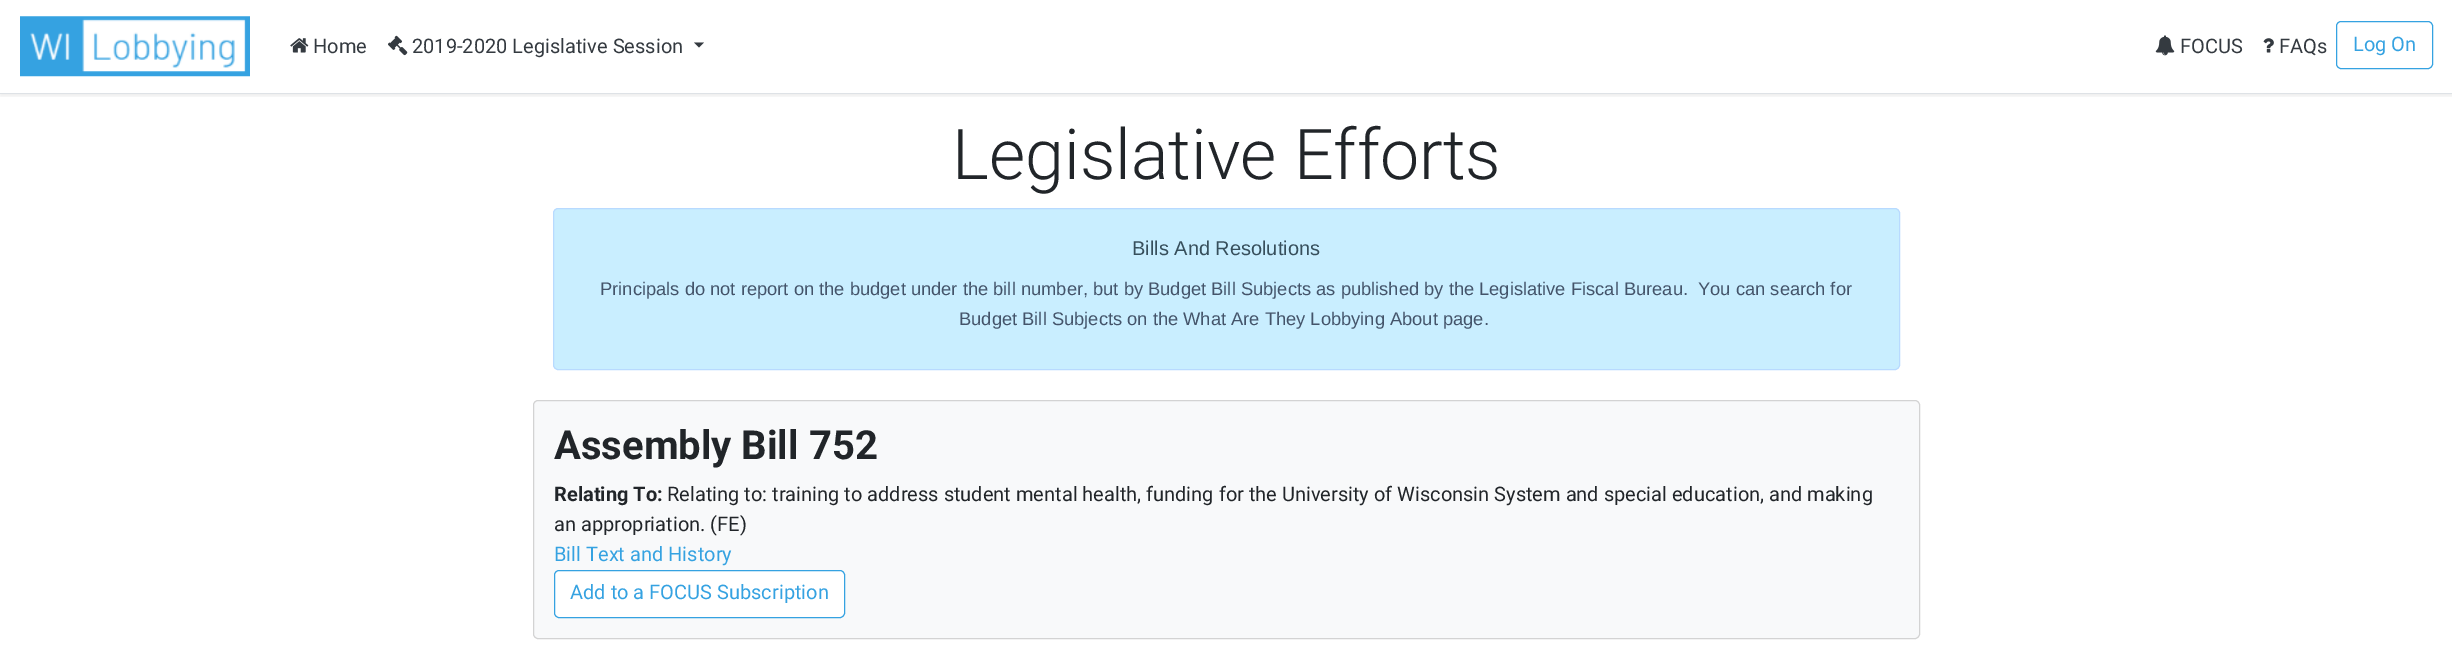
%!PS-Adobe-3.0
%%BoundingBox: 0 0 2452 669
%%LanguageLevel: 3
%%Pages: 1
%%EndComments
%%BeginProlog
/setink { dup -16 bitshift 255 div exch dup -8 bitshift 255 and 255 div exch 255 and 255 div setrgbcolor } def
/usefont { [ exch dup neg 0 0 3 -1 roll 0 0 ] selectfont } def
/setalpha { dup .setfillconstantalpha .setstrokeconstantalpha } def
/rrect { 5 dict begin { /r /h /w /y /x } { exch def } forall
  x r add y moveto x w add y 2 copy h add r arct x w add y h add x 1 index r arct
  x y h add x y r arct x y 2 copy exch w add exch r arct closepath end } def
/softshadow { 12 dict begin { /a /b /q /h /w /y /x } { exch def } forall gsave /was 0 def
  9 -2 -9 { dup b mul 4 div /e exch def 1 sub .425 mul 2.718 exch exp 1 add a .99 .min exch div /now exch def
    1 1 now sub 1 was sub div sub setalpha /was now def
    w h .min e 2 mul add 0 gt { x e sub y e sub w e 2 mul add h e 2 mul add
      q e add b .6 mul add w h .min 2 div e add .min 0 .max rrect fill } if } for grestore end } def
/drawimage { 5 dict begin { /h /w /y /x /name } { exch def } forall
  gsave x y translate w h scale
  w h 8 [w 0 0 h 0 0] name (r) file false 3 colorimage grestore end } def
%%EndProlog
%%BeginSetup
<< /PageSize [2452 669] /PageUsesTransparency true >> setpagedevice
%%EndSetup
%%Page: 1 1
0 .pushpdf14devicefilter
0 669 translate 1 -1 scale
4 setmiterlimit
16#FFFFFF setink
0 0 2452 669 rectfill
gsave
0 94 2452 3 rectclip
16#000000 setink
0 3 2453 93 0 2.5 0.07 softshadow
grestore
16#DEE2E6 setink
0 93 2452 1 rectfill
(img1.raw) 20 16 230 61 drawimage
(img2.raw) 290 38 19 15 drawimage
/Roboto-Regular 20 usefont
16#343A40 setink
313 53 moveto (Home) show
(img3.raw) 388 35 20 21 drawimage
412 53 moveto (2019-2020 Legislative Session) show
694 42.5 moveto 704 42.5 lineto 699 47.5 lineto closepath fill
(img4.raw) 2155 35 20 21 drawimage
2180 53 moveto (FOCUS) show
(img5.raw) 2263 38 11 15 drawimage
2279 53 moveto (FAQs) show
16#35A2E1 setink
2336.5 21.5 96 47 4.5 rrect stroke
2353 51 moveto (Log On) show
/Roboto-Light 70 usefont
16#212529 setink
952 179 moveto (Legislative Efforts) show
16#C9EEFF setink
553.5 208.5 1346 161 4.5 rrect gsave fill grestore
16#B8DAFF setink
stroke
/LiberationSans-Regular 20 usefont
16#374F5C setink
1132 255 moveto (Bills And Resolutions) show
/LiberationSans-Regular 18.33 usefont
16#44546A setink
600 295 moveto (Principals do not report on the budget under the bill number, but by Budget Bill Subjects as published by the Legislative Fiscal Bureau.  You can search for) show
959 325 moveto (Budget Bill Subjects on the What Are They Lobbying About page.) show
16#F8F9FA setink
533.5 400.5 1386 238 4.5 rrect gsave fill grestore
16#D3D3D3 setink
stroke
/Roboto-Bold 40 usefont
16#212529 setink
554 459 moveto (Assembly Bill 752) show
/Roboto-Bold 20 usefont
554 501 moveto (Relating To:) show
/Roboto-Regular 20 usefont
667 501 moveto (Relating to: training to address student mental health, funding for the University of Wisconsin System and special education, and making) show
554 531 moveto (an appropriation. \(FE\)) show
16#35A2E1 setink
554 561 moveto (Bill Text and History) show
16#FFFFFF setink
554.5 570.5 290 47 4.5 rrect gsave fill grestore
16#35A2E1 setink
stroke
570 599 moveto (Add to a FOCUS Subscription) show
.poppdf14devicefilter showpage
%%EOF
